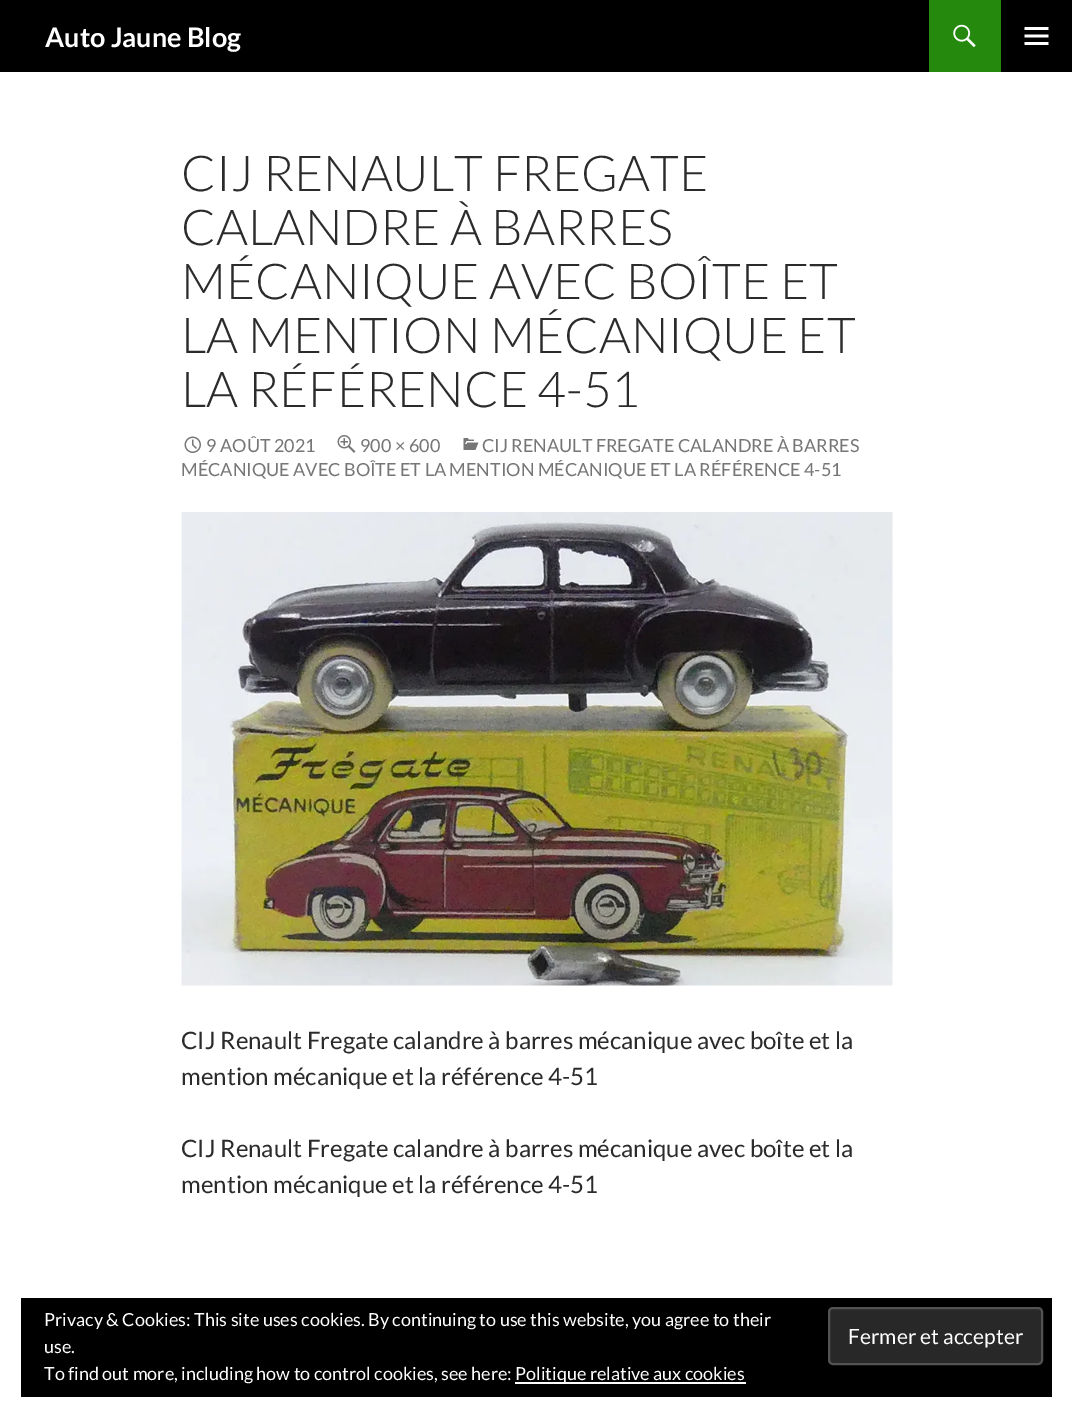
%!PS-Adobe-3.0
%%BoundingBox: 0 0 1072 1417
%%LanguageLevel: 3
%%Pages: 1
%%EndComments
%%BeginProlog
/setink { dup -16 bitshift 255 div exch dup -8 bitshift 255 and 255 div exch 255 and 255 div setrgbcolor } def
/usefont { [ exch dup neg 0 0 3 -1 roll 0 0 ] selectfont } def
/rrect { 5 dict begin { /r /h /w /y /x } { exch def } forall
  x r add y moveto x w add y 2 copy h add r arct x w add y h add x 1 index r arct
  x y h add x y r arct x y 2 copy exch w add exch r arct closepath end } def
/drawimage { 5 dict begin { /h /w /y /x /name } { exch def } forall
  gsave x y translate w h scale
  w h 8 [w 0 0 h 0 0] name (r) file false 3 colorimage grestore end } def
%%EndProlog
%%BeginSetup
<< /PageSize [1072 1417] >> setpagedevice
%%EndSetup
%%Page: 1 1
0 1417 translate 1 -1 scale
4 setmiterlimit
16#FFFFFF setink
0 0 1072 1417 rectfill
16#000000 setink
0 0 1072 72 rectfill
/Lato-Bold 27 usefont
16#FFFFFF setink
45 47 moveto (Auto Jaune Blog) show
16#24890D setink
929 0 72 72 rectfill
(img1.raw) 953 24 23 24 drawimage
(img2.raw) 1024 27 25 18 drawimage
/Lato-Light 49.5 usefont
16#2B2B2B setink
[
    [(CIJ RENAULT FREGATE) 181 191]
    [(CALANDRE À BARRES) 181 245]
    [(MÉCANIQUE AVEC BOÎTE ET) 181 299]
    [(LA MENTION MÉCANIQUE ET) 181 353]
    [(LA RÉFÉRENCE 4-51) 181 407]
] { aload pop moveto show } forall
(img3.raw) 463 438 16 12 drawimage
/Lato-Regular 18 usefont
16#767676 setink
482 452 moveto (CIJ RENAULT FREGATE CALANDRE À BARRES) show
181 476 moveto (MÉCANIQUE AVEC BOÎTE ET LA MENTION MÉCANIQUE ET LA RÉFÉRENCE 4-51) show
(img4.raw) 184 436 17 17 drawimage
206 452 moveto (9 AOÛT 2021) show
(img5.raw) 337 435 19 18 drawimage
360 452 moveto (900 × 600) show
(img6.raw) 181 512 712 474 drawimage
/Lato-Regular 24 usefont
16#2B2B2B setink
[
    [(CIJ Renault Fregate calandre à barres mécanique avec boîte et la) 181 1049]
    [(mention mécanique et la référence 4-51) 181 1085]
    [(CIJ Renault Fregate calandre à barres mécanique avec boîte et la) 181 1157]
    [(mention mécanique et la référence 4-51) 181 1193]
] { aload pop moveto show } forall
16#000000 setink
21 1298 1031 99 rectfill
/Lato-Regular 18 usefont
16#FFFFFF setink
44 1326 moveto (Privacy & Cookies: This site uses cookies. By continuing to use this website, you agree to their) show
44 1353 moveto (use.) show
16#282828 setink
829 1308 213 56 4 rrect gsave fill grestore
16#535353 setink
2 setlinewidth
stroke
/Lato-Regular 21 usefont
16#FFFFFF setink
848 1344 moveto (Fermer et accepter) show
/Lato-Regular 18 usefont
44 1380 moveto (To find out more, including how to control cookies, see here:) show
515 1382 231 2 rectfill
515 1380 moveto (Politique relative aux cookies) show
showpage
%%EOF
